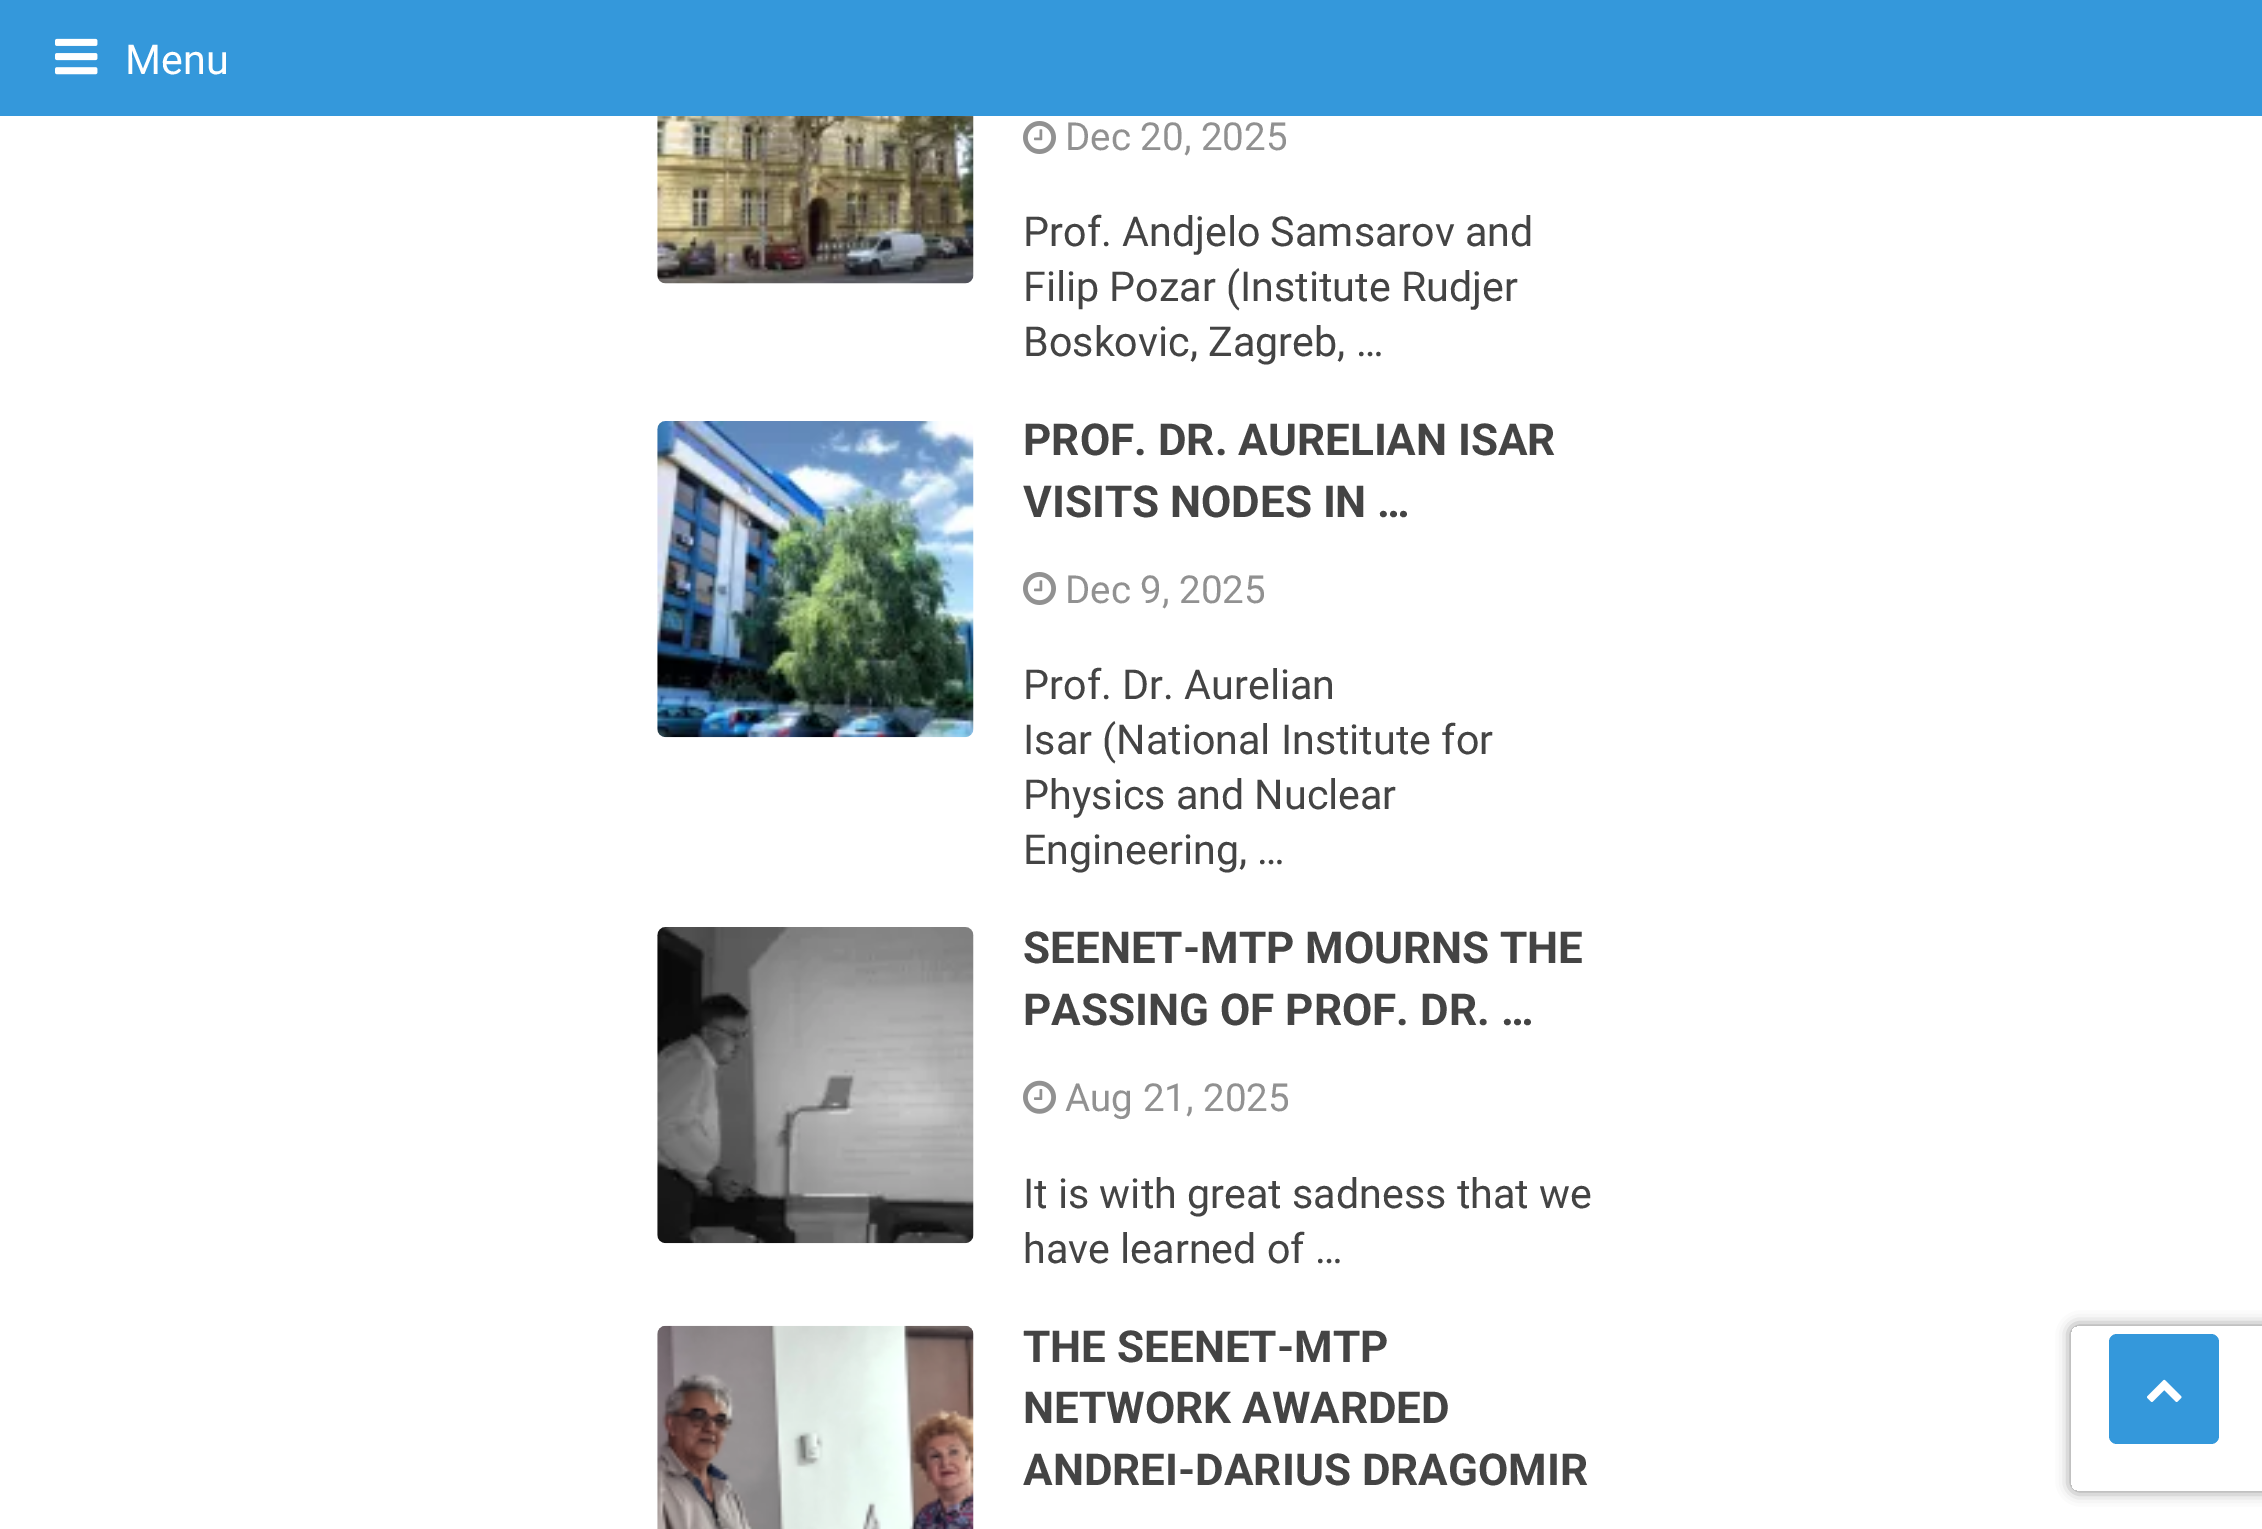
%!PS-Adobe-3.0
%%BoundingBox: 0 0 2262 1529
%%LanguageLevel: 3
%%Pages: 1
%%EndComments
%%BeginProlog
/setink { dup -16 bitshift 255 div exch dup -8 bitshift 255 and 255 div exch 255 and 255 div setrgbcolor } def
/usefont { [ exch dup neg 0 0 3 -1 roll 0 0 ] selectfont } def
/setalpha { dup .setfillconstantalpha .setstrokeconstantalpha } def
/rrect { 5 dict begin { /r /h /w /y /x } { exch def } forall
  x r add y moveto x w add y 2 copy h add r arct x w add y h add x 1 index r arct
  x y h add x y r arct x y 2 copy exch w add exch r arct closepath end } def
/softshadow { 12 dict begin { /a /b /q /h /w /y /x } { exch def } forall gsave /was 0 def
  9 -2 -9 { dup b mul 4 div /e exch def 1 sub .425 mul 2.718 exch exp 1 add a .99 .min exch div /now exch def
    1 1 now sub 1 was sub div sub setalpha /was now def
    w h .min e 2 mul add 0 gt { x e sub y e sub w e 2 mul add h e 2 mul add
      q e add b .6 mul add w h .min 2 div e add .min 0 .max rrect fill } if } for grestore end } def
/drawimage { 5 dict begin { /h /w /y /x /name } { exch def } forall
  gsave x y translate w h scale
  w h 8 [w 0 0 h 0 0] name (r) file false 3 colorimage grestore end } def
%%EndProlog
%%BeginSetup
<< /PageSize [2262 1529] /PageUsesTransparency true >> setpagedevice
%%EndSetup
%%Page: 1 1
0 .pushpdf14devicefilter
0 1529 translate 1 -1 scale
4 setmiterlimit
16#FFFFFF setink
0 0 2262 1529 rectfill
16#3498DB setink
0 0 2262 116 rectfill
(img1.raw) 55 38 43 37 drawimage
/Roboto-Regular 41.25 usefont
16#FFFFFF setink
125 74 moveto (Menu) show
(img2.raw) 657 116 317 168 drawimage
(img3.raw) 1023 121 33 33 drawimage
/Roboto-Regular 38.5 usefont
16#919191 setink
1065 150 moveto (Dec 20, 2025) show
/Roboto-Regular 41.25 usefont
16#444444 setink
[
    [(Prof. Andjelo Samsarov and) 1023 246]
    [(Filip Pozar \(Institute Rudjer) 1023 301]
    [(Boskovic, Zagreb, …) 1023 356]
] { aload pop moveto show } forall
(img4.raw) 657 421 317 317 drawimage
/Roboto-Bold 44 usefont
1023 455 moveto (PROF. DR. AURELIAN ISAR) show
1023 517 moveto (VISITS NODES IN …) show
(img3.raw) 1023 572 33 33 drawimage
/Roboto-Regular 38.5 usefont
16#919191 setink
1065 603 moveto (Dec 9, 2025) show
/Roboto-Regular 41.25 usefont
16#444444 setink
[
    [(Prof. Dr. Aurelian) 1023 699]
    [(Isar \(National Institute for) 1023 754]
    [(Physics and Nuclear) 1023 809]
    [(Engineering, …) 1023 864]
] { aload pop moveto show } forall
(img5.raw) 657 927 317 317 drawimage
/Roboto-Bold 44 usefont
1023 963 moveto (SEENET-MTP MOURNS THE) show
1023 1025 moveto (PASSING OF PROF. DR. …) show
(img6.raw) 1023 1080 33 34 drawimage
/Roboto-Regular 38.5 usefont
16#919191 setink
1065 1111 moveto (Aug 21, 2025) show
/Roboto-Regular 41.25 usefont
16#444444 setink
1023 1208 moveto (It is with great sadness that we) show
1023 1263 moveto (have learned of …) show
(img7.raw) 657 1325 317 204 drawimage
/Roboto-Bold 44 usefont
[
    [(THE SEENET-MTP) 1023 1362]
    [(NETWORK AWARDED) 1023 1423]
    [(ANDREI-DARIUS DRAGOMIR) 1023 1485]
] { aload pop moveto show } forall
gsave
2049 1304 moveto 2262 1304 lineto 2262 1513 lineto 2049 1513 lineto closepath 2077 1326 moveto 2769 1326 lineto 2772.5 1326 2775 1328.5 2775 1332 curveto 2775 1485 lineto 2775 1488.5 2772.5 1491 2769 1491 curveto 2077 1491 lineto 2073.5 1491 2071 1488.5 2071 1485 curveto 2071 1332 lineto 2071 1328.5 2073.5 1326 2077 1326 curveto closepath eoclip newpath
16#808080 setink
2071 1326 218 165 6 7 1 softshadow
grestore
16#3498DB setink
2109 1334 110 110 8 rrect fill
(img8.raw) 2147 1379 35 23 drawimage
.poppdf14devicefilter showpage
%%EOF
